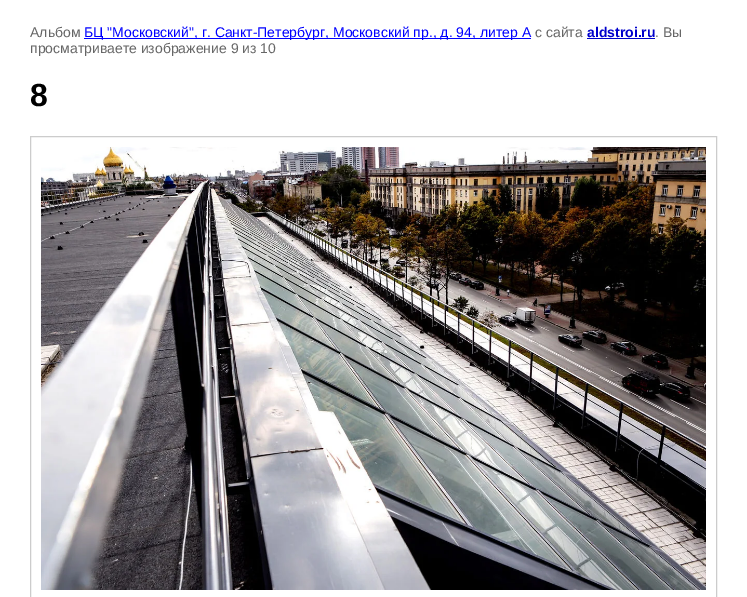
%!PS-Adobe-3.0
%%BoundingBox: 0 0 747 597
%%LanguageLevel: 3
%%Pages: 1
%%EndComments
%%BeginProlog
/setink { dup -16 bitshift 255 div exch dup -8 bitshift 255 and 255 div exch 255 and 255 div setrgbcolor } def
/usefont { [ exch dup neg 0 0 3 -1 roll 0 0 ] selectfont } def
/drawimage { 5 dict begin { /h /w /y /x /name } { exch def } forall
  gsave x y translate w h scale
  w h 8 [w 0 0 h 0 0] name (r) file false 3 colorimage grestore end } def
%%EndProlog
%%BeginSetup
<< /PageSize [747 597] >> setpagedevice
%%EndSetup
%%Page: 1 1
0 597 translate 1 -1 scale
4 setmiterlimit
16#FFFFFF setink
0 0 747 597 rectfill
/LiberationSans-Regular 14 usefont
16#666666 setink
30 37 moveto (Альбом) show
16#0000FF setink
84 38 447 1 rectfill
84 37 moveto (БЦ "Московский", г. Санкт-Петербург, Московский пр., д. 94, литер А) show
16#666666 setink
535 37 moveto (с сайта) show
/LiberationSans-Bold 14 usefont
16#0000CC setink
587 37 moveto (aldstroi.ru) show
587 38 68 1 rectfill
/LiberationSans-Regular 14 usefont
16#666666 setink
655 37 moveto (. Вы) show
30 53 moveto (просматриваете изображение 9 из 10) show
/LiberationSans-Bold 32 usefont
16#000000 setink
30 106 moveto (8) show
16#CCCCCC setink
30.5 136.5 686 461 rectstroke
(img1.raw) 41 147 665 443 drawimage
showpage
%%EOF
